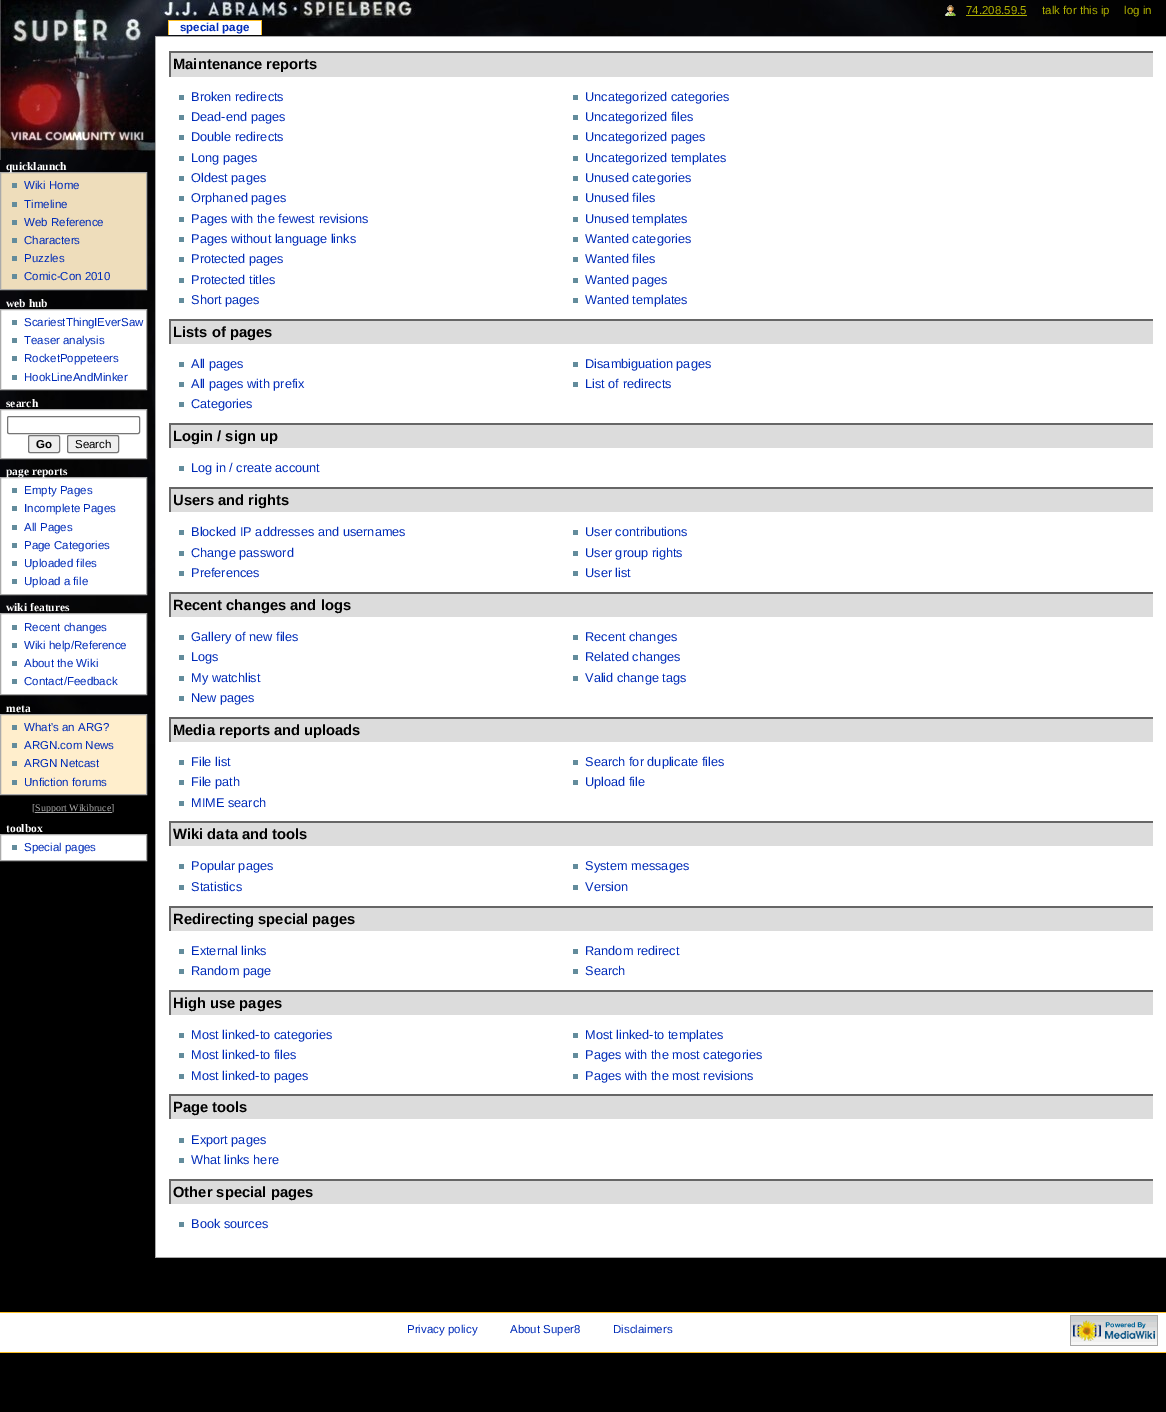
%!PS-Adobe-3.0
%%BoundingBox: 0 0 1166 1412
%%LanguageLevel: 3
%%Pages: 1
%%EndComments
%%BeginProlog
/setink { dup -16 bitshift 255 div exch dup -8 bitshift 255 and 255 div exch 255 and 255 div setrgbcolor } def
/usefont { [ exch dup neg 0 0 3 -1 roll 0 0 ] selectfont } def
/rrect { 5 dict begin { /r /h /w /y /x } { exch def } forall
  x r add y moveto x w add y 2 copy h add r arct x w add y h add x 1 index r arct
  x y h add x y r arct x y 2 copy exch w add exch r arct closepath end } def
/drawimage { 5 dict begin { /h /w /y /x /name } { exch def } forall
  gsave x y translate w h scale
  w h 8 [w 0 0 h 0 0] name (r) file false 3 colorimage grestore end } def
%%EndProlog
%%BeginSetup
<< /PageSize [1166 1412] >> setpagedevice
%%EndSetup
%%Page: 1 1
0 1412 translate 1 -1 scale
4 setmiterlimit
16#000000 setink
0 0 1166 1412 rectfill
(img1.raw) 0 0 1137 744 drawimage
(img2.raw) 945 5 11 11 drawimage
/LiberationSans-Regular 11.5 usefont
16#AFAF00 setink
966 14 moveto (74.208.59.5) show
966 15 61 1 rectfill
1042 14 moveto (talk for this ip) show
1124 14 moveto (log in) show
16#FFFFFF setink
169 21 92 14 rectfill
/LiberationSans-Bold 11.5 usefont
16#002BB8 setink
180 31 moveto (special page) show
[
    [168 20 94 1 16#FABD23]
    [261 20 1 15 16#FABD23]
    [168 20 1 15 16#FABD23]
] { aload pop setink rectfill } forall
16#EEDDBB setink
0.5 172.5 moveto 146.5 172.5 lineto 146.5 289.5 lineto 0.5 289.5 lineto closepath gsave fill grestore
16#AAAAAA setink
stroke
/LiberationSerif-Bold 11.5 usefont
16#FFFFFF setink
6 170 moveto (quicklaunch) show
16#638C9C setink
12 183 5 5 rectfill
/LiberationSans-Regular 11.5 usefont
16#002BB8 setink
24 189 moveto (Wiki Home) show
16#638C9C setink
12 202 5 5 rectfill
16#002BB8 setink
24 208 moveto (Timeline) show
16#638C9C setink
12 220 5 5 rectfill
16#002BB8 setink
24 226 moveto (Web Reference) show
16#638C9C setink
12 238 5 5 rectfill
16#002BB8 setink
24 244 moveto (Characters) show
16#638C9C setink
12 256 5 5 rectfill
16#002BB8 setink
24 262 moveto (Puzzles) show
16#638C9C setink
12 274 5 5 rectfill
16#002BB8 setink
24 280 moveto (Comic-Con 2010) show
/LiberationSerif-Bold 11.5 usefont
16#FFFFFF setink
6 307 moveto (web hub) show
0.5 309.5 moveto 146.5 309.5 lineto 146.5 389.5 lineto 0.5 389.5 lineto closepath gsave fill grestore
16#AAAAAA setink
stroke
16#638C9C setink
12 320 5 5 rectfill
/LiberationSans-Regular 11.5 usefont
16#002BB8 setink
24 326 moveto (ScariestThingIEverSaw) show
16#638C9C setink
12 338 5 5 rectfill
16#002BB8 setink
24 344 moveto (Teaser analysis) show
16#638C9C setink
12 356 5 5 rectfill
16#002BB8 setink
24 362 moveto (RocketPoppeteers) show
16#638C9C setink
12 375 5 5 rectfill
16#002BB8 setink
24 381 moveto (HookLineAndMinker) show
/LiberationSerif-Bold 11.5 usefont
16#FFFFFF setink
6 407 moveto (search) show
0.5 409.5 moveto 146.5 409.5 lineto 146.5 458.5 lineto 0.5 458.5 lineto closepath gsave fill grestore
16#AAAAAA setink
stroke
16#767676 setink
7.5 416.5 132 17 1.5 rrect stroke
16#EFEFEF setink
28.5 435.5 31 17 1.5 rrect gsave fill grestore
16#767676 setink
stroke
/LiberationSans-Bold 11.5 usefont
16#000000 setink
36 448 moveto (Go) show
16#EFEFEF setink
67.5 435.5 51 17 1.5 rrect gsave fill grestore
16#767676 setink
stroke
/LiberationSans-Regular 11.5 usefont
16#000000 setink
75 448 moveto (Search) show
16#FFFFFF setink
0.5 477.5 moveto 146.5 477.5 lineto 146.5 594.5 lineto 0.5 594.5 lineto closepath gsave fill grestore
16#AAAAAA setink
stroke
/LiberationSerif-Bold 11.5 usefont
16#FFFFFF setink
6 475 moveto (page reports) show
16#638C9C setink
12 488 5 5 rectfill
/LiberationSans-Regular 11.5 usefont
16#002BB8 setink
24 494 moveto (Empty Pages) show
16#638C9C setink
12 506 5 5 rectfill
16#002BB8 setink
24 512 moveto (Incomplete Pages) show
16#638C9C setink
12 525 5 5 rectfill
16#002BB8 setink
24 531 moveto (All Pages) show
16#638C9C setink
12 543 5 5 rectfill
16#002BB8 setink
24 549 moveto (Page Categories) show
16#638C9C setink
12 561 5 5 rectfill
16#002BB8 setink
24 567 moveto (Uploaded files) show
16#638C9C setink
12 579 5 5 rectfill
16#002BB8 setink
24 585 moveto (Upload a file) show
/LiberationSerif-Bold 11.5 usefont
16#FFFFFF setink
6 611 moveto (wiki features) show
0.5 613.5 moveto 146.5 613.5 lineto 146.5 694.5 lineto 0.5 694.5 lineto closepath gsave fill grestore
16#AAAAAA setink
stroke
16#638C9C setink
12 625 5 5 rectfill
/LiberationSans-Regular 11.5 usefont
16#002BB8 setink
24 631 moveto (Recent changes) show
16#638C9C setink
12 643 5 5 rectfill
16#002BB8 setink
24 649 moveto (Wiki help/Reference) show
16#638C9C setink
12 661 5 5 rectfill
16#002BB8 setink
24 667 moveto (About the Wiki) show
16#638C9C setink
12 679 5 5 rectfill
16#002BB8 setink
24 685 moveto (Contact/Feedback) show
/LiberationSerif-Bold 11.5 usefont
16#FFFFFF setink
6 712 moveto (meta) show
16#FFEECC setink
0.5 714.5 moveto 146.5 714.5 lineto 146.5 794.5 lineto 0.5 794.5 lineto closepath gsave fill grestore
16#AAAAAA setink
stroke
16#638C9C setink
12 725 5 5 rectfill
/LiberationSans-Regular 11.5 usefont
16#002BB8 setink
24 731 moveto (What's an ARG?) show
16#638C9C setink
12 743 5 5 rectfill
16#002BB8 setink
24 749 moveto (ARGN.com News) show
16#638C9C setink
12 761 5 5 rectfill
16#002BB8 setink
24 767 moveto (ARGN Netcast) show
16#638C9C setink
12 780 5 5 rectfill
16#002BB8 setink
24 786 moveto (Unfiction forums) show
/LiberationSerif-Regular 10 usefont
16#AAAAAA setink
32 811 moveto ([) show
35 812 77 1 rectfill
35 811 moveto (Support Wikibruce]) show
/LiberationSerif-Bold 11.5 usefont
16#FFFFFF setink
6 832 moveto (toolbox) show
0.5 834.5 moveto 146.5 834.5 lineto 146.5 860.5 lineto 0.5 860.5 lineto closepath gsave fill grestore
16#AAAAAA setink
stroke
16#638C9C setink
12 845 5 5 rectfill
/LiberationSans-Regular 11.5 usefont
16#002BB8 setink
24 851 moveto (Special pages) show
[
    [156 37 1010 1220 16#FFFFFF]
    [155 36 1011 1 16#AAAAAA]
    [155 1257 1011 1 16#AAAAAA]
    [155 36 1 1222 16#AAAAAA]
    [171 53 982 24 16#DCDCDC]
    [169 51 984 2 16#666666]
    [169 51 2 26 16#666666]
] { aload pop setink rectfill } forall
/LiberationSans-Bold 14.75 usefont
16#000000 setink
173 69 moveto (Maintenance reports) show
16#638C9C setink
179 95 5 5 rectfill
/LiberationSans-Regular 12.75 usefont
16#002BB8 setink
191 101 moveto (Broken redirects) show
16#638C9C setink
179 115 5 5 rectfill
16#002BB8 setink
191 121 moveto (Dead-end pages) show
16#638C9C setink
179 135 5 5 rectfill
16#002BB8 setink
191 141 moveto (Double redirects) show
16#638C9C setink
179 156 5 5 rectfill
16#002BB8 setink
191 162 moveto (Long pages) show
16#638C9C setink
179 176 5 5 rectfill
16#002BB8 setink
191 182 moveto (Oldest pages) show
16#638C9C setink
179 196 5 5 rectfill
16#002BB8 setink
191 202 moveto (Orphaned pages) show
16#638C9C setink
179 217 5 5 rectfill
16#002BB8 setink
191 223 moveto (Pages with the fewest revisions) show
16#638C9C setink
179 237 5 5 rectfill
16#002BB8 setink
191 243 moveto (Pages without language links) show
16#638C9C setink
179 257 5 5 rectfill
16#002BB8 setink
191 263 moveto (Protected pages) show
16#638C9C setink
179 278 5 5 rectfill
16#002BB8 setink
191 284 moveto (Protected titles) show
16#638C9C setink
179 298 5 5 rectfill
16#002BB8 setink
191 304 moveto (Short pages) show
16#638C9C setink
573 95 5 5 rectfill
16#002BB8 setink
585 101 moveto (Uncategorized categories) show
16#638C9C setink
573 115 5 5 rectfill
16#002BB8 setink
585 121 moveto (Uncategorized files) show
16#638C9C setink
573 135 5 5 rectfill
16#002BB8 setink
585 141 moveto (Uncategorized pages) show
16#638C9C setink
573 156 5 5 rectfill
16#002BB8 setink
585 162 moveto (Uncategorized templates) show
16#638C9C setink
573 176 5 5 rectfill
16#002BB8 setink
585 182 moveto (Unused categories) show
16#638C9C setink
573 196 5 5 rectfill
16#002BB8 setink
585 202 moveto (Unused files) show
16#638C9C setink
573 217 5 5 rectfill
16#002BB8 setink
585 223 moveto (Unused templates) show
16#638C9C setink
573 237 5 5 rectfill
16#002BB8 setink
585 243 moveto (Wanted categories) show
16#638C9C setink
573 257 5 5 rectfill
16#002BB8 setink
585 263 moveto (Wanted files) show
16#638C9C setink
573 278 5 5 rectfill
16#002BB8 setink
585 284 moveto (Wanted pages) show
16#638C9C setink
573 298 5 5 rectfill
16#002BB8 setink
585 304 moveto (Wanted templates) show
[
    [171 321 982 23 16#DCDCDC]
    [169 319 984 2 16#666666]
    [169 319 2 25 16#666666]
] { aload pop setink rectfill } forall
/LiberationSans-Bold 14.75 usefont
16#000000 setink
173 337 moveto (Lists of pages) show
16#638C9C setink
179 362 5 5 rectfill
/LiberationSans-Regular 12.75 usefont
16#002BB8 setink
191 368 moveto (All pages) show
16#638C9C setink
179 382 5 5 rectfill
16#002BB8 setink
191 388 moveto (All pages with prefix) show
16#638C9C setink
179 402 5 5 rectfill
16#002BB8 setink
191 408 moveto (Categories) show
16#638C9C setink
573 362 5 5 rectfill
16#002BB8 setink
585 368 moveto (Disambiguation pages) show
16#638C9C setink
573 382 5 5 rectfill
16#002BB8 setink
585 388 moveto (List of redirects) show
[
    [171 425 982 23 16#DCDCDC]
    [169 423 984 2 16#666666]
    [169 423 2 25 16#666666]
] { aload pop setink rectfill } forall
/LiberationSans-Bold 14.75 usefont
16#000000 setink
173 441 moveto (Login / sign up) show
16#638C9C setink
179 466 5 5 rectfill
/LiberationSans-Regular 12.75 usefont
16#002BB8 setink
191 472 moveto (Log in / create account) show
[
    [171 489 982 23 16#DCDCDC]
    [169 487 984 2 16#666666]
    [169 487 2 25 16#666666]
] { aload pop setink rectfill } forall
/LiberationSans-Bold 14.75 usefont
16#000000 setink
173 505 moveto (Users and rights) show
16#638C9C setink
179 530 5 5 rectfill
/LiberationSans-Regular 12.75 usefont
16#002BB8 setink
191 536 moveto (Blocked IP addresses and usernames) show
16#638C9C setink
179 551 5 5 rectfill
16#002BB8 setink
191 557 moveto (Change password) show
16#638C9C setink
179 571 5 5 rectfill
16#002BB8 setink
191 577 moveto (Preferences) show
16#638C9C setink
573 530 5 5 rectfill
16#002BB8 setink
585 536 moveto (User contributions) show
16#638C9C setink
573 551 5 5 rectfill
16#002BB8 setink
585 557 moveto (User group rights) show
16#638C9C setink
573 571 5 5 rectfill
16#002BB8 setink
585 577 moveto (User list) show
[
    [171 594 982 23 16#DCDCDC]
    [169 592 984 2 16#666666]
    [169 592 2 25 16#666666]
] { aload pop setink rectfill } forall
/LiberationSans-Bold 14.75 usefont
16#000000 setink
173 610 moveto (Recent changes and logs) show
16#638C9C setink
179 635 5 5 rectfill
/LiberationSans-Regular 12.75 usefont
16#002BB8 setink
191 641 moveto (Gallery of new files) show
16#638C9C setink
179 655 5 5 rectfill
16#002BB8 setink
191 661 moveto (Logs) show
16#638C9C setink
179 676 5 5 rectfill
16#002BB8 setink
191 682 moveto (My watchlist) show
16#638C9C setink
179 696 5 5 rectfill
16#002BB8 setink
191 702 moveto (New pages) show
16#638C9C setink
573 635 5 5 rectfill
16#002BB8 setink
585 641 moveto (Recent changes) show
16#638C9C setink
573 655 5 5 rectfill
16#002BB8 setink
585 661 moveto (Related changes) show
16#638C9C setink
573 676 5 5 rectfill
16#002BB8 setink
585 682 moveto (Valid change tags) show
[
    [171 719 982 23 16#DCDCDC]
    [169 717 984 2 16#666666]
    [169 717 2 25 16#666666]
] { aload pop setink rectfill } forall
/LiberationSans-Bold 14.75 usefont
16#000000 setink
173 735 moveto (Media reports and uploads) show
16#638C9C setink
179 760 5 5 rectfill
/LiberationSans-Regular 12.75 usefont
16#002BB8 setink
191 766 moveto (File list) show
16#638C9C setink
179 780 5 5 rectfill
16#002BB8 setink
191 786 moveto (File path) show
16#638C9C setink
179 801 5 5 rectfill
16#002BB8 setink
191 807 moveto (MIME search) show
16#638C9C setink
573 760 5 5 rectfill
16#002BB8 setink
585 766 moveto (Search for duplicate files) show
16#638C9C setink
573 780 5 5 rectfill
16#002BB8 setink
585 786 moveto (Upload file) show
[
    [171 823 982 23 16#DCDCDC]
    [169 821 984 2 16#666666]
    [169 821 2 25 16#666666]
] { aload pop setink rectfill } forall
/LiberationSans-Bold 14.75 usefont
16#000000 setink
173 839 moveto (Wiki data and tools) show
16#638C9C setink
179 864 5 5 rectfill
/LiberationSans-Regular 12.75 usefont
16#002BB8 setink
191 870 moveto (Popular pages) show
16#638C9C setink
179 885 5 5 rectfill
16#002BB8 setink
191 891 moveto (Statistics) show
16#638C9C setink
573 864 5 5 rectfill
16#002BB8 setink
585 870 moveto (System messages) show
16#638C9C setink
573 885 5 5 rectfill
16#002BB8 setink
585 891 moveto (Version) show
[
    [171 908 982 23 16#DCDCDC]
    [169 906 984 2 16#666666]
    [169 906 2 25 16#666666]
] { aload pop setink rectfill } forall
/LiberationSans-Bold 14.75 usefont
16#000000 setink
173 924 moveto (Redirecting special pages) show
16#638C9C setink
179 949 5 5 rectfill
/LiberationSans-Regular 12.75 usefont
16#002BB8 setink
191 955 moveto (External links) show
16#638C9C setink
179 969 5 5 rectfill
16#002BB8 setink
191 975 moveto (Random page) show
16#638C9C setink
573 949 5 5 rectfill
16#002BB8 setink
585 955 moveto (Random redirect) show
16#638C9C setink
573 969 5 5 rectfill
16#002BB8 setink
585 975 moveto (Search) show
[
    [171 992 982 23 16#DCDCDC]
    [169 990 984 2 16#666666]
    [169 990 2 25 16#666666]
] { aload pop setink rectfill } forall
/LiberationSans-Bold 14.75 usefont
16#000000 setink
173 1008 moveto (High use pages) show
16#638C9C setink
179 1033 5 5 rectfill
/LiberationSans-Regular 12.75 usefont
16#002BB8 setink
191 1039 moveto (Most linked-to categories) show
16#638C9C setink
179 1053 5 5 rectfill
16#002BB8 setink
191 1059 moveto (Most linked-to files) show
16#638C9C setink
179 1074 5 5 rectfill
16#002BB8 setink
191 1080 moveto (Most linked-to pages) show
16#638C9C setink
573 1033 5 5 rectfill
16#002BB8 setink
585 1039 moveto (Most linked-to templates) show
16#638C9C setink
573 1053 5 5 rectfill
16#002BB8 setink
585 1059 moveto (Pages with the most categories) show
16#638C9C setink
573 1074 5 5 rectfill
16#002BB8 setink
585 1080 moveto (Pages with the most revisions) show
[
    [171 1096 982 23 16#DCDCDC]
    [169 1094 984 2 16#666666]
    [169 1094 2 25 16#666666]
] { aload pop setink rectfill } forall
/LiberationSans-Bold 14.75 usefont
16#000000 setink
173 1112 moveto (Page tools) show
16#638C9C setink
179 1138 5 5 rectfill
/LiberationSans-Regular 12.75 usefont
16#002BB8 setink
191 1144 moveto (Export pages) show
16#638C9C setink
179 1158 5 5 rectfill
16#002BB8 setink
191 1164 moveto (What links here) show
[
    [171 1181 982 23 16#DCDCDC]
    [169 1179 984 2 16#666666]
    [169 1179 2 25 16#666666]
] { aload pop setink rectfill } forall
/LiberationSans-Bold 14.75 usefont
16#000000 setink
173 1197 moveto (Other special pages) show
16#638C9C setink
179 1222 5 5 rectfill
/LiberationSans-Regular 12.75 usefont
16#002BB8 setink
191 1228 moveto (Book sources) show
[
    [0 1313 1166 39 16#FFFFFF]
    [0 1312 1166 1 16#FABD23]
    [0 1352 1166 1 16#FABD23]
] { aload pop setink rectfill } forall
/LiberationSans-Regular 11.5 usefont
16#002BB8 setink
[
    [(Privacy policy) 407 1333]
    [(About Super8) 510 1333]
    [(Disclaimers) 613 1333]
] { aload pop moveto show } forall
(img3.raw) 1070 1315 88 31 drawimage
showpage
%%EOF
